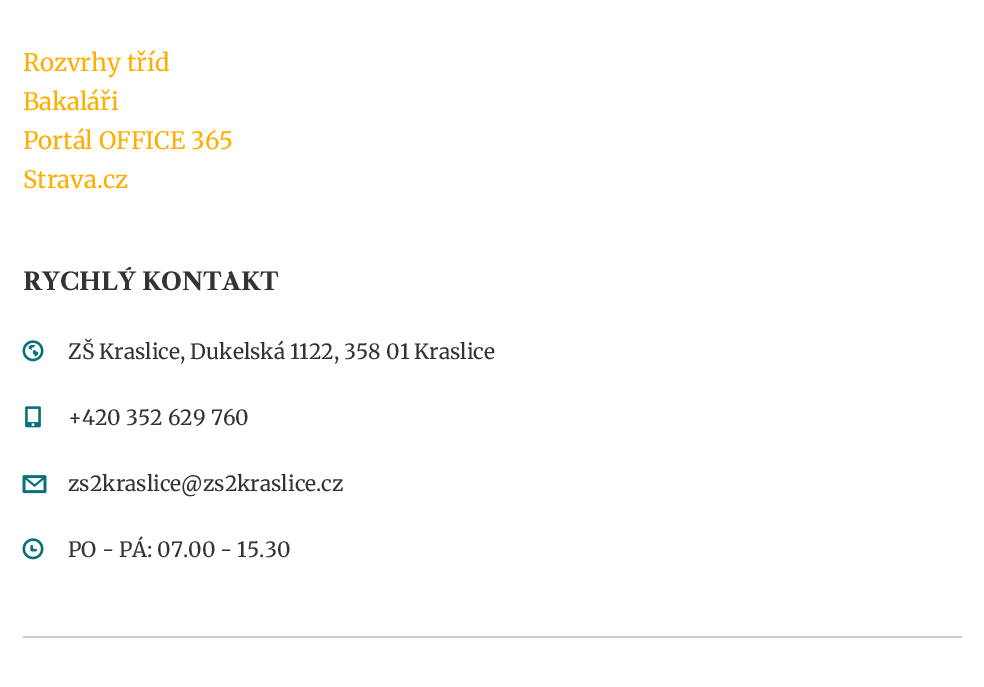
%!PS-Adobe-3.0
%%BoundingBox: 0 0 984 687
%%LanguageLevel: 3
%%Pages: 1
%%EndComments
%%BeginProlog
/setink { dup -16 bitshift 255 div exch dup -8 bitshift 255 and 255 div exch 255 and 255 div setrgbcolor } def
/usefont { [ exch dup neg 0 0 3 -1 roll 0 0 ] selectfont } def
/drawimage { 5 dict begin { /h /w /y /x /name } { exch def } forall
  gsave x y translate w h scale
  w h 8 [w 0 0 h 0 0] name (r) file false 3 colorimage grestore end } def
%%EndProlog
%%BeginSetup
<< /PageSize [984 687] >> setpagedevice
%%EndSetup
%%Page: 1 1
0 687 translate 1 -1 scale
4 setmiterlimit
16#FFFFFF setink
0 0 984 687 rectfill
16#CCCCCC setink
23 636 939 2 rectfill
/Merriweather-Regular 24 usefont
16#FFAE00 setink
[
    [(Rozvrhy tříd) 23 71]
    [(Bakaláři) 23 110]
    [(Portál OFFICE 365) 23 149]
    [(Strava.cz) 23 188]
] { aload pop moveto show } forall
/LibreCaslonText-Bold 24 usefont
16#333333 setink
23 290 moveto (RYCHLÝ KONTAKT) show
(img1.raw) 22 340 22 22 drawimage
/Merriweather-Regular 21 usefont
68 359 moveto (ZŠ Kraslice, Dukelská 1122, 358 01 Kraslice) show
(img2.raw) 25 406 16 22 drawimage
68 425 moveto (+420 352 629 760) show
(img3.raw) 22 475 25 19 drawimage
68 491 moveto (zs2kraslice@zs2kraslice.cz) show
(img4.raw) 22 538 22 22 drawimage
68 557 moveto (PO - PÁ: 07.00 - 15.30) show
showpage
%%EOF
